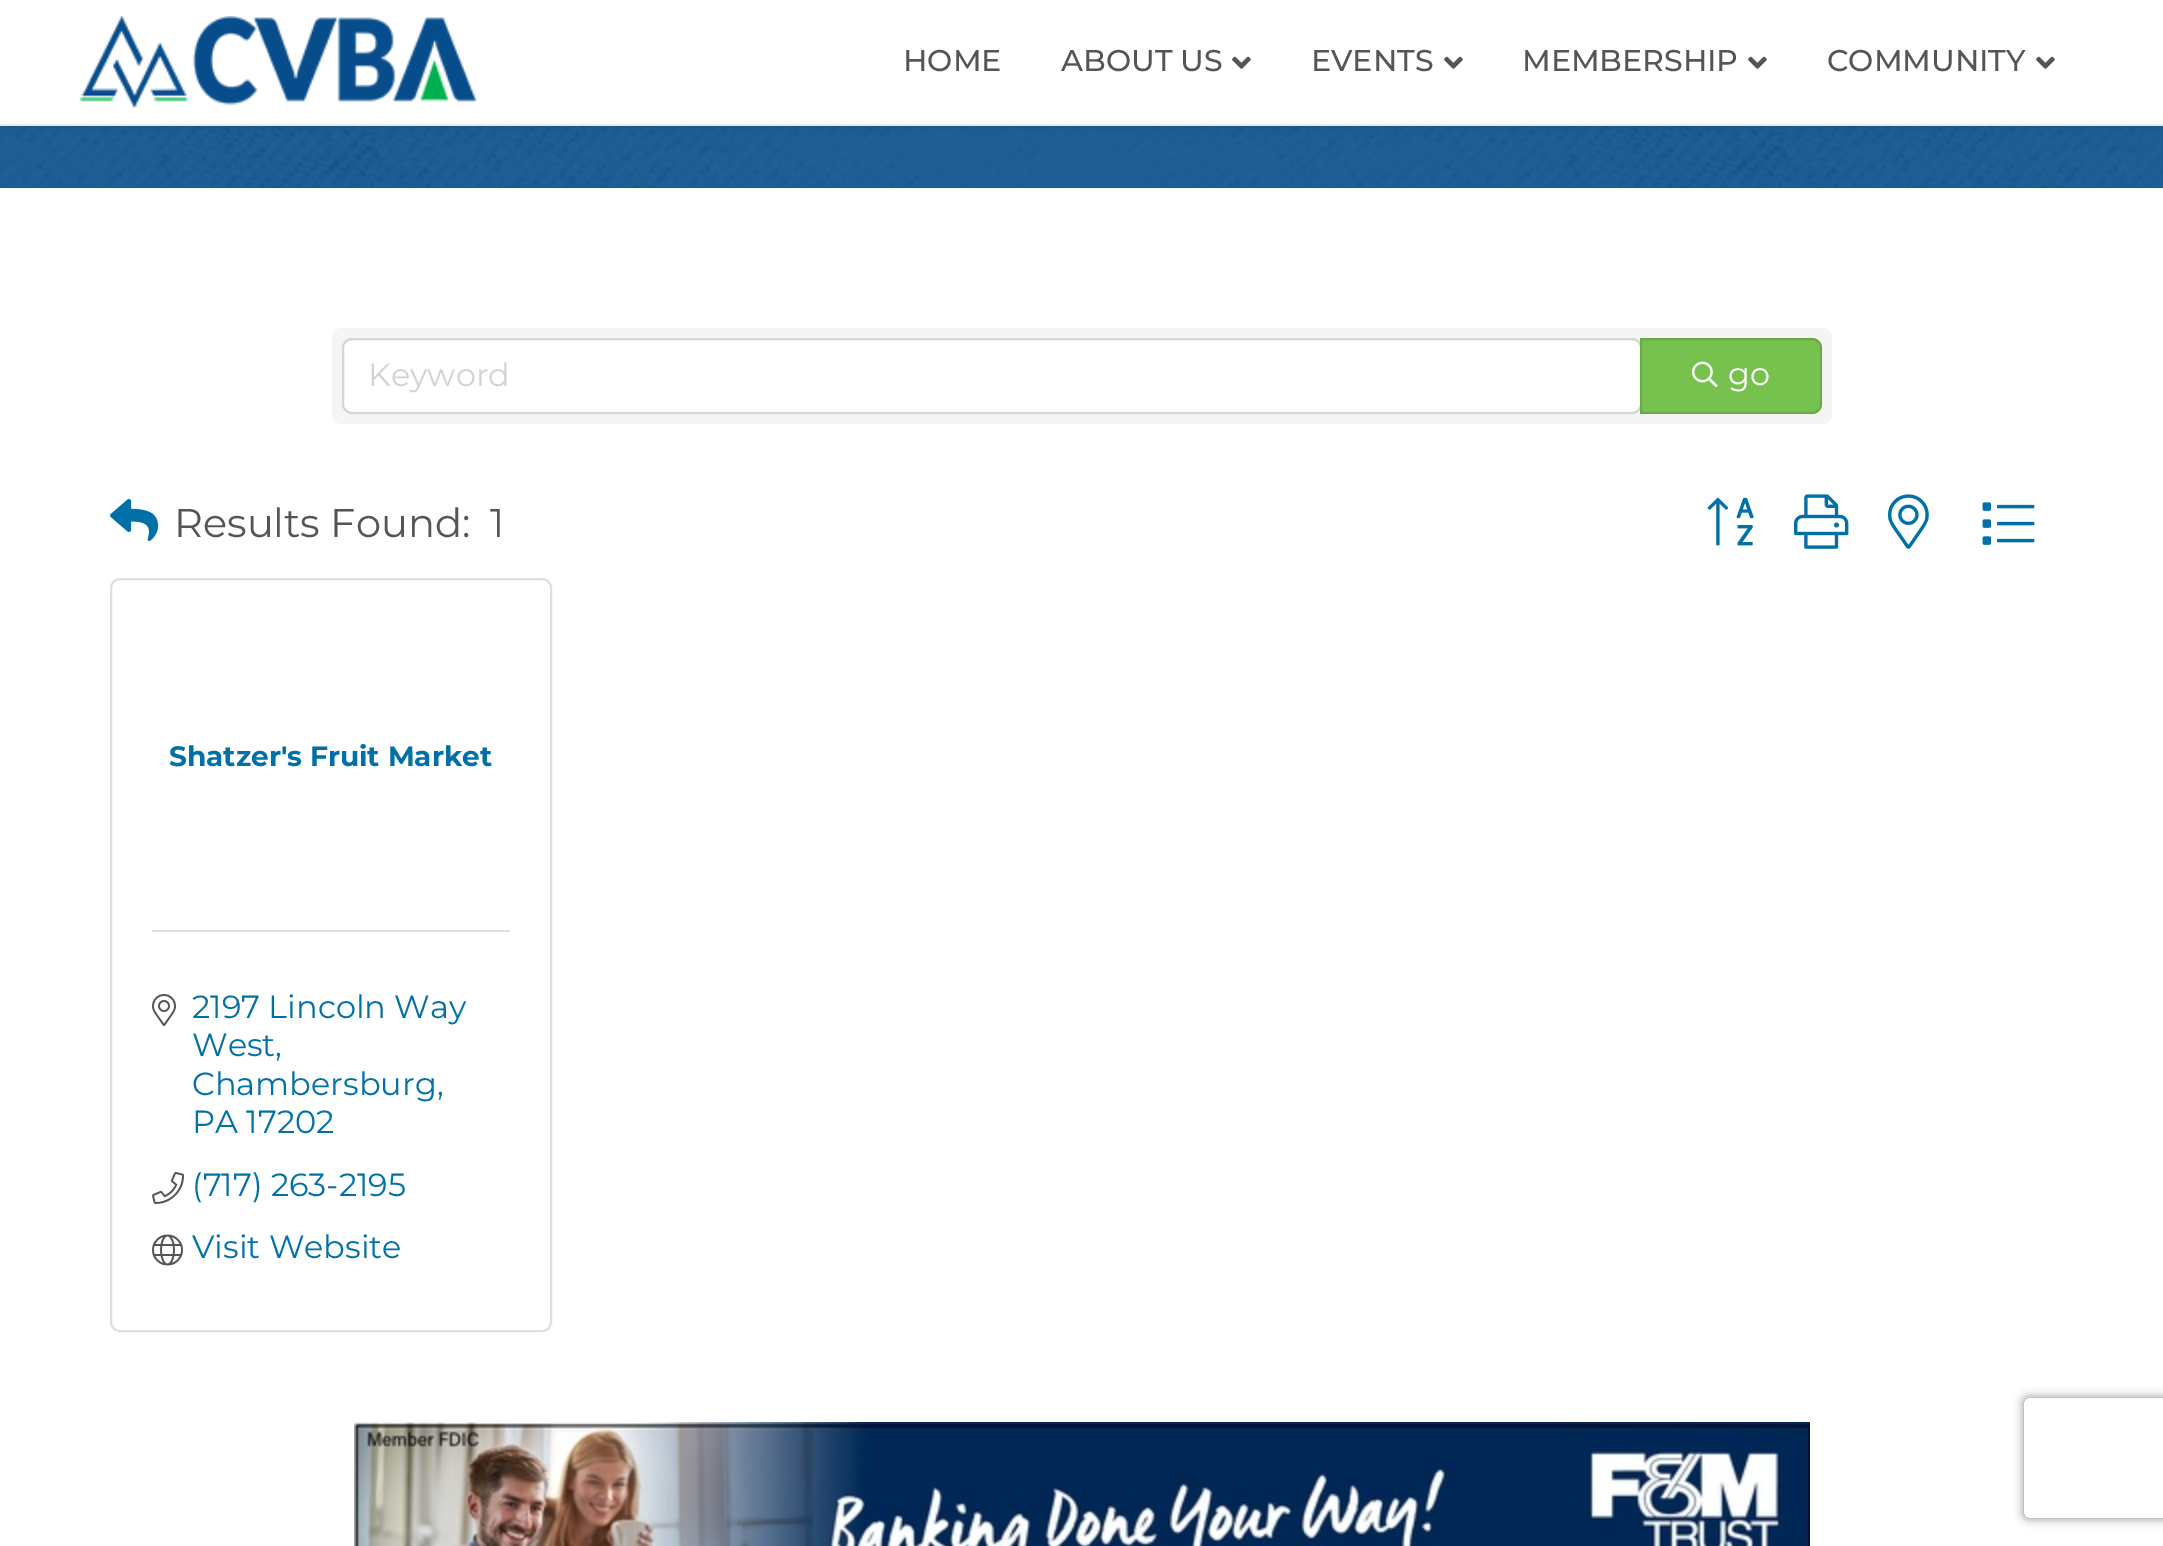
%!PS-Adobe-3.0
%%BoundingBox: 0 0 2163 1546
%%LanguageLevel: 3
%%Pages: 1
%%EndComments
%%BeginProlog
/setink { dup -16 bitshift 255 div exch dup -8 bitshift 255 and 255 div exch 255 and 255 div setrgbcolor } def
/usefont { [ exch dup neg 0 0 3 -1 roll 0 0 ] selectfont } def
/setalpha { dup .setfillconstantalpha .setstrokeconstantalpha } def
/rrect { 5 dict begin { /r /h /w /y /x } { exch def } forall
  x r add y moveto x w add y 2 copy h add r arct x w add y h add x 1 index r arct
  x y h add x y r arct x y 2 copy exch w add exch r arct closepath end } def
/softshadow { 12 dict begin { /a /b /q /h /w /y /x } { exch def } forall gsave /was 0 def
  9 -2 -9 { dup b mul 4 div /e exch def 1 sub .425 mul 2.718 exch exp 1 add a .99 .min exch div /now exch def
    1 1 now sub 1 was sub div sub setalpha /was now def
    w h .min e 2 mul add 0 gt { x e sub y e sub w e 2 mul add h e 2 mul add
      q e add b .6 mul add w h .min 2 div e add .min 0 .max rrect fill } if } for grestore end } def
/drawimage { 5 dict begin { /h /w /y /x /name } { exch def } forall
  gsave x y translate w h scale
  w h 8 [w 0 0 h 0 0] name (r) file false 3 colorimage grestore end } def
%%EndProlog
%%BeginSetup
<< /PageSize [2163 1546] /PageUsesTransparency true >> setpagedevice
%%EndSetup
%%Page: 1 1
0 .pushpdf14devicefilter
0 1546 translate 1 -1 scale
4 setmiterlimit
16#FFFFFF setink
0 0 2163 1546 rectfill
(img3.raw) 0 126 2163 62 drawimage
16#000000 setink
0 0 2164 126 0 7 0.1 softshadow
16#FFFFFF setink
0 0 2163 124 rectfill
16#E9E9E9 setink
0 124 2163 2 rectfill
(img1.raw) 80 16 397 92 drawimage
/Montserrat-Medium 30 usefont
16#555555 setink
903 71 moveto (HOME) show
1061 71 moveto (ABOUT US) show
(img2.raw) 1232 56 19 13 drawimage
1311 71 moveto (EVENTS) show
(img2.raw) 1444 56 19 13 drawimage
1522 71 moveto (MEMBERSHIP) show
(img2.raw) 1748 56 19 13 drawimage
1827 71 moveto (COMMUNITY) show
(img2.raw) 2036 56 19 13 drawimage
16#F5F5F5 setink
332 328 1500 96 10 rrect fill
16#FFFFFF setink
343 339 1298 74 9 rrect gsave fill grestore
16#D6D6D6 setink
2 setlinewidth
stroke
/Montserrat-Regular 32 usefont
16#D2D2D2 setink
368 386 moveto (Keyword) show
16#77C14E setink
1640 338 moveto 1812 338 lineto 1817.5 338 1822 342.5 1822 348 curveto 1822 404 lineto 1822 409.5 1817.5 414 1812 414 curveto 1640 414 lineto closepath fill
0.12 setalpha
16#000000 setink
1641 339 moveto 1812 339 lineto 1817 339 1821 343 1821 348 curveto 1821 404 lineto 1821 409 1817 413 1812 413 curveto 1641 413 lineto closepath stroke
1 setalpha
(img4.raw) 1692 361 26 27 drawimage
16#FFFFFF setink
1728 385 moveto (go) show
(img5.raw) 110 499 49 42 drawimage
/Montserrat-Regular 40 usefont
16#555555 setink
174 537 moveto (Results Found:) show
490 537 moveto (1) show
(img6.raw) 1707 497 47 49 drawimage
(img7.raw) 1794 494 55 55 drawimage
(img8.raw) 1888 494 41 55 drawimage
(img9.raw) 1982 502 53 43 drawimage
16#DFDFDF setink
111 579 440 752 9 rrect stroke
/Montserrat-Bold 28 usefont
16#0070A7 setink
169 766 moveto (Shatzer's Fruit Market) show
16#DFDFDF setink
152 930 358 2 rectfill
(img10.raw) 152 994 24 32 drawimage
/Montserrat-Regular 32 usefont
16#0070A7 setink
[
    [(2197 Lincoln Way) 192 1018]
    [(West,) 192 1056]
    [(Chambersburg,) 192 1095]
    [(PA 17202) 192 1133]
] { aload pop moveto show } forall
(img11.raw) 152 1172 33 32 drawimage
192 1196 moveto (\(717\) 263-2195) show
(img12.raw) 152 1234 31 32 drawimage
192 1258 moveto (Visit Website) show
(img13.raw) 354 1422 1456 124 drawimage
gsave
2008 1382 moveto 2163 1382 lineto 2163 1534 lineto 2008 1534 lineto closepath 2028 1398 moveto 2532 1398 lineto 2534 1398 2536 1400 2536 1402 curveto 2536 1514 lineto 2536 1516 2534 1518 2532 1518 curveto 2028 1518 lineto 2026 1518 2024 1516 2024 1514 curveto 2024 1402 lineto 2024 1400 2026 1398 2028 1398 curveto closepath eoclip newpath
16#808080 setink
2024 1398 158 120 4 5 1 softshadow
grestore
.poppdf14devicefilter showpage
%%EOF
